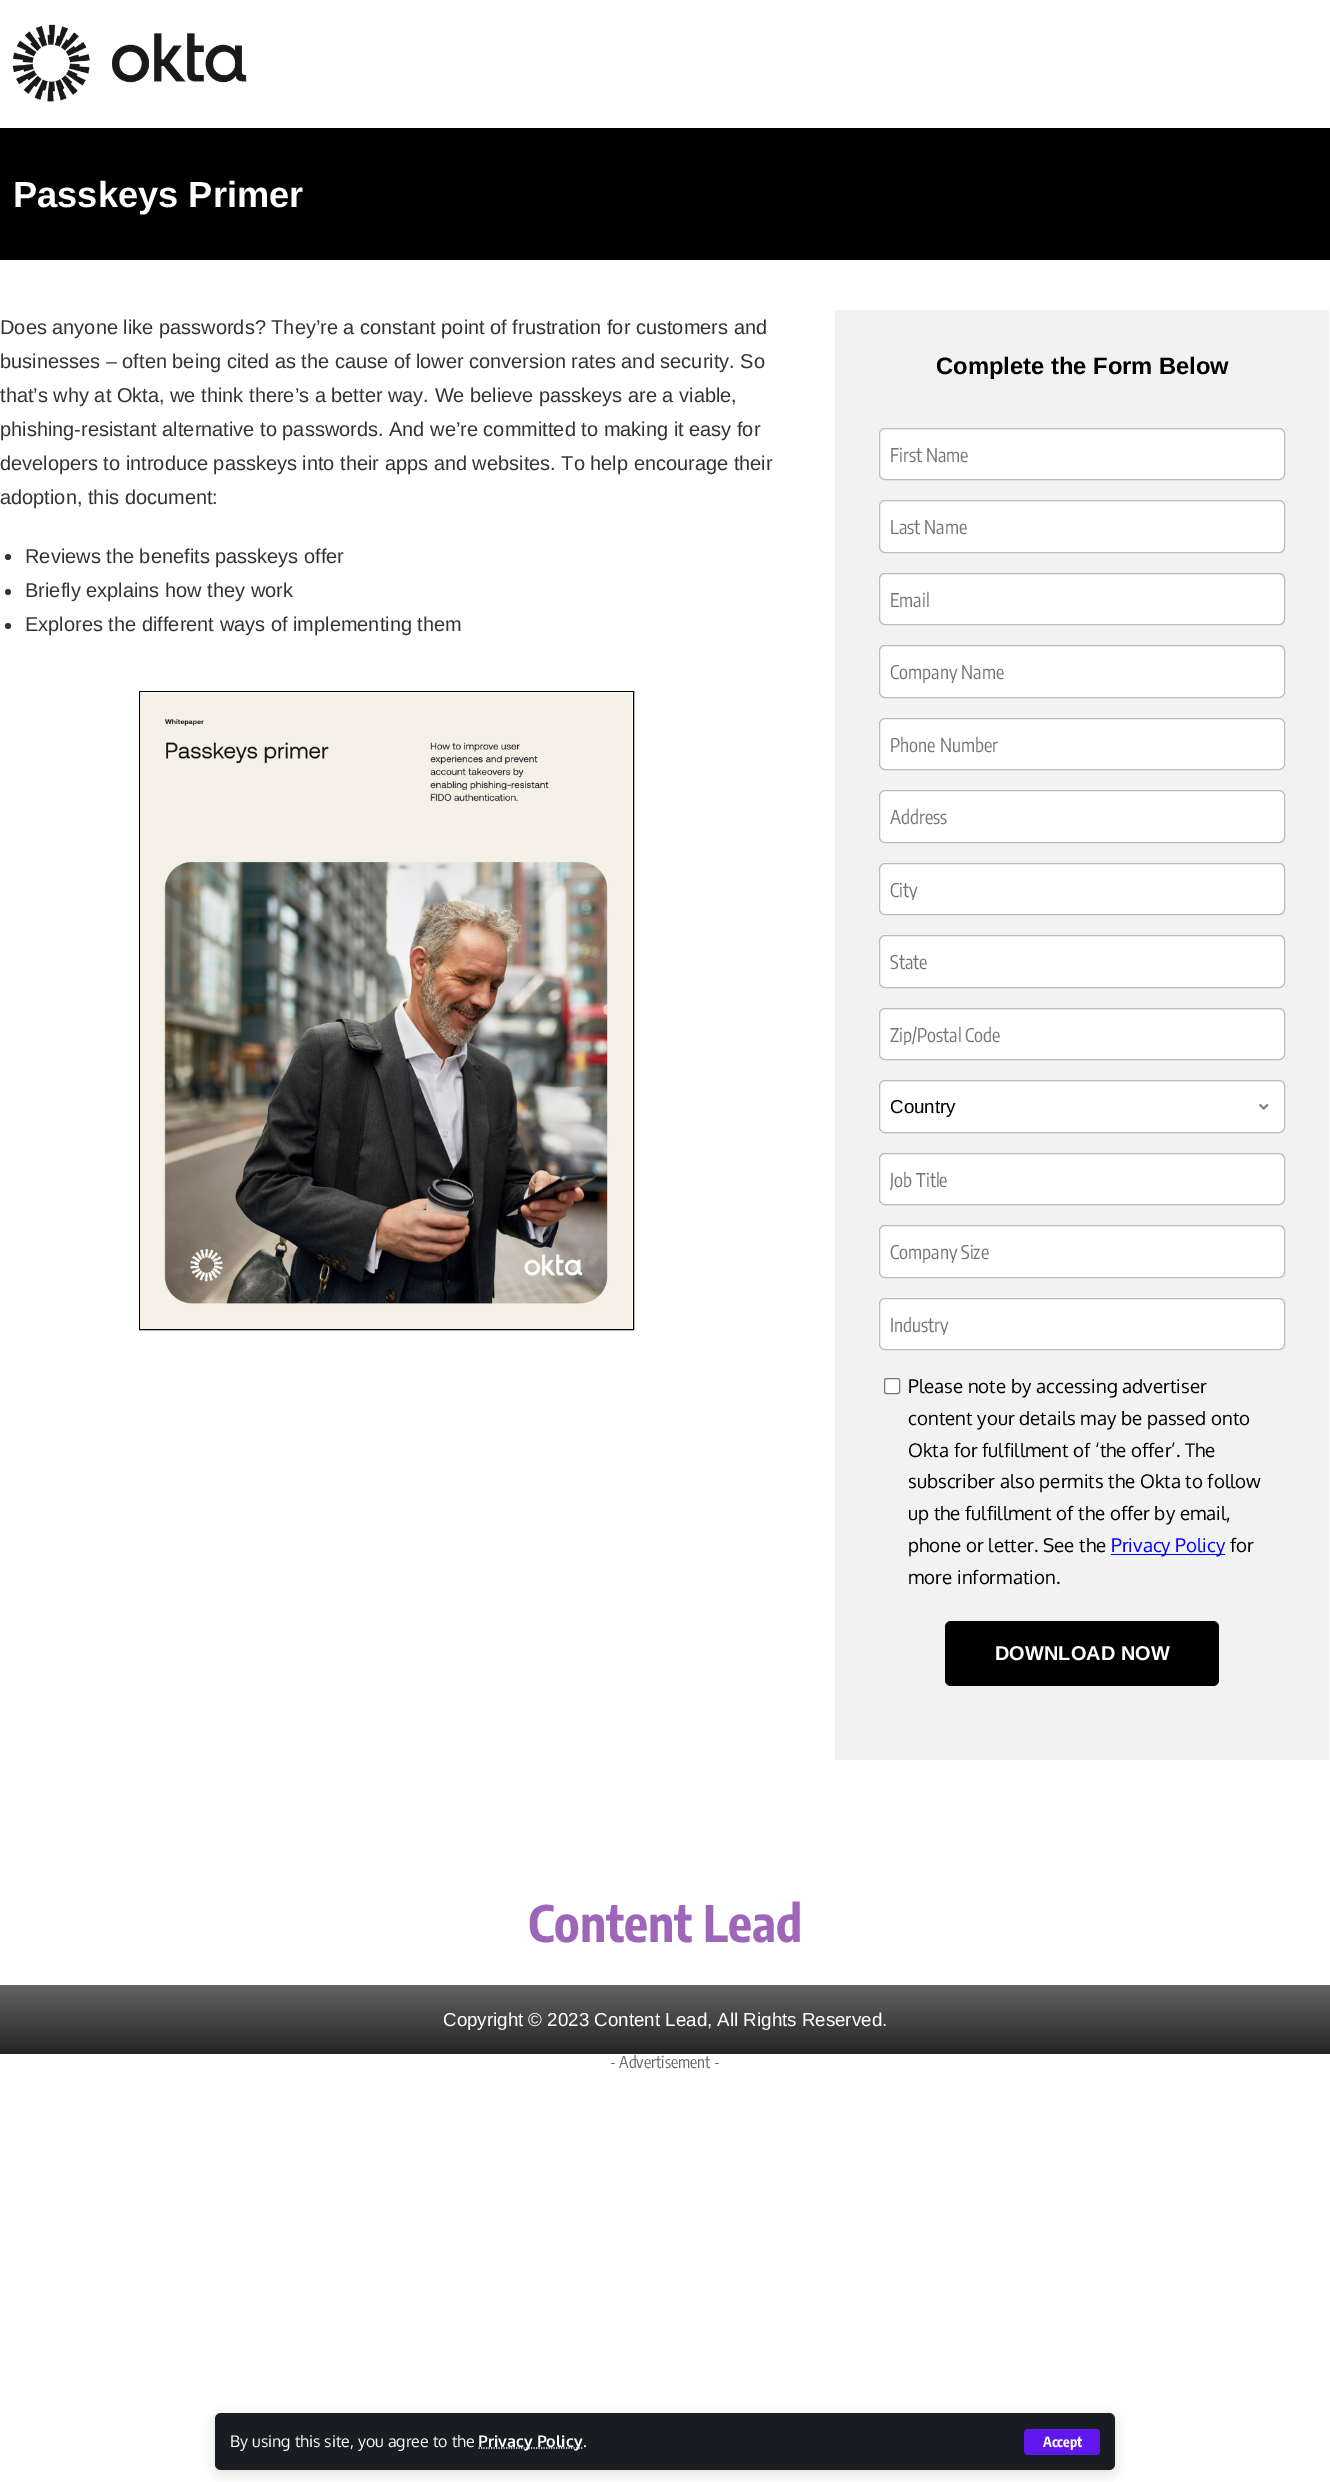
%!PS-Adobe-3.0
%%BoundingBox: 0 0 1330 2482
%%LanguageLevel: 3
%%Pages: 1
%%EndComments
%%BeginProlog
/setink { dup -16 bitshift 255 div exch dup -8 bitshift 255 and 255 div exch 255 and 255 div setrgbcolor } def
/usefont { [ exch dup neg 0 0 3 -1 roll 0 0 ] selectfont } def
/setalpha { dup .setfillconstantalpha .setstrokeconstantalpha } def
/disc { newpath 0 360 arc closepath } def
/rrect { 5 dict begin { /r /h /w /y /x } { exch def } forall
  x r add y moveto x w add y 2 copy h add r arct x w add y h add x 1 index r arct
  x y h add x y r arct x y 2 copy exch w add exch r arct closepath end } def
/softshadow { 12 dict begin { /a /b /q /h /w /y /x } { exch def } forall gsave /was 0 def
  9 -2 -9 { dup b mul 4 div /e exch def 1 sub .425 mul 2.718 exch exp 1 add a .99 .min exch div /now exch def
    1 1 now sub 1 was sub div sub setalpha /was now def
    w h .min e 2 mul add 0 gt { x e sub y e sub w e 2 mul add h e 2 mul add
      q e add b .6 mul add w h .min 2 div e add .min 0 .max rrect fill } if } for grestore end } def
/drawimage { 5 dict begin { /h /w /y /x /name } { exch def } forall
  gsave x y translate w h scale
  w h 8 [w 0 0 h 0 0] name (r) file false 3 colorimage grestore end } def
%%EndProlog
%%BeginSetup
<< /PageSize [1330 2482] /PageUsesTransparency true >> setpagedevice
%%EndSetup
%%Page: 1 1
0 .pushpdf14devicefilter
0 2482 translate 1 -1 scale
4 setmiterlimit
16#FFFFFF setink
0 0 1330 2482 rectfill
(img1.raw) 12 24 235 78 drawimage
16#000000 setink
0 128 1330 132 rectfill
/LiberationSans-Bold 36.25 usefont
16#FFFFFF setink
13 207 moveto (Passkeys Primer) show
/LiberationSans-Regular 20 usefont
16#333335 setink
[
    [(Does anyone like passwords? They’re a constant point of frustration for customers and) 0 334]
    [(businesses – often being cited as the cause of lower conversion rates and security. So) 0 368]
    [(that’s why at Okta, we think there’s a better way. We believe passkeys are a viable,) 0 402]
    [(phishing-resistant alternative to passwords. And we’re committed to making it easy for) 0 436]
    [(developers to introduce passkeys into their apps and websites. To help encourage their) 0 470]
    [(adoption, this document:) 0 504]
] { aload pop moveto show } forall
8 557 3 disc fill
25 563 moveto (Reviews the benefits passkeys offer) show
8 592 3 disc fill
25 597 moveto (Briefly explains how they work) show
8 626 3 disc fill
25 631 moveto (Explores the different ways of implementing them) show
16#000000 setink
139.5 691.5 494 638 rectstroke
(img2.raw) 140 692 493 637 drawimage
16#F2F2F2 setink
835 310 494 1450 rectfill
/LiberationSans-Bold 23.75 usefont
16#000000 setink
936 374 moveto (Complete the Form Below) show
16#FFFFFF setink
879.5 428.5 405 51 5.5 rrect gsave fill grestore
16#BBBBBB setink
stroke
/EncodeSansCondensed-Regular 18.75 usefont
16#757575 setink
890 462 moveto (First Name) show
16#FFFFFF setink
879.5 500.5 405 52 5.5 rrect gsave fill grestore
16#BBBBBB setink
stroke
16#757575 setink
890 534 moveto (Last Name) show
16#FFFFFF setink
879.5 573.5 405 51 5.5 rrect gsave fill grestore
16#BBBBBB setink
stroke
16#757575 setink
890 607 moveto (Email) show
16#FFFFFF setink
879.5 645.5 405 52 5.5 rrect gsave fill grestore
16#BBBBBB setink
stroke
gsave
890 660 384 23 rectclip
16#757575 setink
890 679 moveto (Company Name) show
grestore
16#FFFFFF setink
879.5 718.5 405 51 5.5 rrect gsave fill grestore
16#BBBBBB setink
stroke
16#757575 setink
890 752 moveto (Phone Number) show
16#FFFFFF setink
879.5 790.5 405 52 5.5 rrect gsave fill grestore
16#BBBBBB setink
stroke
16#757575 setink
890 824 moveto (Address) show
16#FFFFFF setink
879.5 863.5 405 51 5.5 rrect gsave fill grestore
16#BBBBBB setink
stroke
gsave
890 878 384 22 rectclip
16#757575 setink
890 897 moveto (City) show
grestore
16#FFFFFF setink
879.5 935.5 405 52 5.5 rrect gsave fill grestore
16#BBBBBB setink
stroke
16#757575 setink
890 969 moveto (State) show
16#FFFFFF setink
879.5 1008.5 405 51 5.5 rrect gsave fill grestore
16#BBBBBB setink
stroke
gsave
890 1023 384 22 rectclip
16#757575 setink
890 1042 moveto (Zip/Postal Code) show
grestore
16#FFFFFF setink
879 1080 406 53 6 rrect fill
(img3.raw) 1259 1104 10 6 drawimage
16#BBBBBB setink
879.5 1080.5 405 52 5.5 rrect stroke
/LiberationSans-Regular 18.75 usefont
16#000000 setink
890 1113 moveto (Country) show
16#FFFFFF setink
879.5 1153.5 405 51 5.5 rrect gsave fill grestore
16#BBBBBB setink
stroke
/EncodeSansCondensed-Regular 18.75 usefont
16#757575 setink
890 1187 moveto (Job Title) show
16#FFFFFF setink
879.5 1225.5 405 52 5.5 rrect gsave fill grestore
16#BBBBBB setink
stroke
gsave
890 1240 384 23 rectclip
16#757575 setink
890 1259 moveto (Company Size) show
grestore
16#FFFFFF setink
879.5 1298.5 405 51 5.5 rrect gsave fill grestore
16#BBBBBB setink
stroke
gsave
890 1313 384 22 rectclip
16#757575 setink
890 1332 moveto (Industry) show
grestore
16#FFFFFF setink
884.5 1378.5 15 15 2 rrect gsave fill grestore
16#767676 setink
stroke
/Oxygen-Regular 18.75 usefont
16#000000 setink
[
    [(Please note by accessing advertiser) 908 1393]
    [(content your details may be passed onto) 908 1425]
    [(Okta for fulfillment of ‘the offer’. The) 908 1457]
    [(subscriber also permits the Okta to follow) 908 1488]
    [(up the fulfillment of the offer by email,) 908 1520]
    [(phone or letter. See the) 908 1552]
] { aload pop moveto show } forall
16#0000FF setink
1111 1554 114 1 rectfill
1111 1552 moveto (Privacy Policy) show
16#000000 setink
1230 1552 moveto (for) show
908 1584 moveto (more information.) show
945 1621 274 65 6 rrect fill
/LiberationSans-Bold 20 usefont
16#FFFFFF setink
995 1660 moveto (DOWNLOAD NOW) show
/EncodeSansCondensed-Bold 50 usefont
16#9E66B9 setink
528 1942 moveto (Content Lead) show
gsave 0 1985 moveto 1330 1985 lineto 1330 2054 lineto 0 2054 lineto closepath clip newpath
<< /ShadingType 2 /ColorSpace /DeviceRGB /Coords [665 1985 665 2054] /Extend [true true] /Function << /FunctionType 2 /Domain [0 1] /C0 [0.392 0.392 0.392] /C1 [0.141 0.141 0.141] /N 1 >> >> shfill grestore
/LiberationSans-Regular 18.75 usefont
16#FFFFFF setink
443 2026 moveto (Copyright © 2023 Content Lead, All Rights Reserved.) show
/EncodeSansCondensed-Regular 16.25 usefont
16#666666 setink
610 2068 moveto (- Advertisement -) show
16#000000 setink
215 2416 900 58 6 7.5 0.12 softshadow
16#191C20 setink
215 2413 900 57 6 rrect fill
/Oxygen-Regular 16 usefont
16#FFFFFF setink
230 2447 moveto (By using this site, you agree to the) show
1.2 setlinewidth
[1.25 1.25] 0 setdash
478.5 2448 moveto 583 2448 lineto stroke
/Oxygen-Bold 16 usefont
478 2447 moveto (Privacy Policy) show
/Oxygen-Regular 16 usefont
583 2447 moveto (.) show
16#5F17EC setink
1024 2429 76 26 4 rrect fill
/EncodeSansCondensed-Bold 14 usefont
16#FFFFFF setink
1043 2447 moveto (Accept) show
.poppdf14devicefilter showpage
%%EOF
